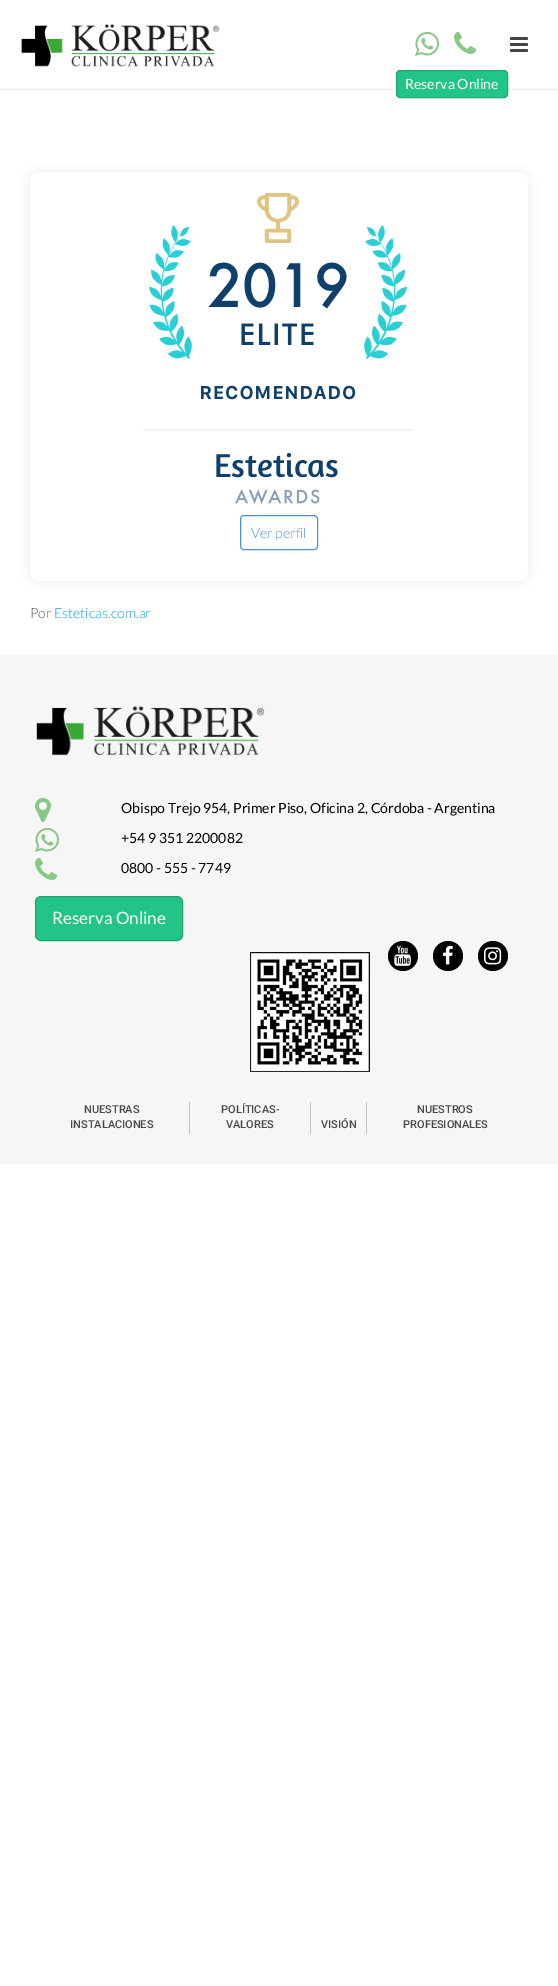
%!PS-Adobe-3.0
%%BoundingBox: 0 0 558 1986
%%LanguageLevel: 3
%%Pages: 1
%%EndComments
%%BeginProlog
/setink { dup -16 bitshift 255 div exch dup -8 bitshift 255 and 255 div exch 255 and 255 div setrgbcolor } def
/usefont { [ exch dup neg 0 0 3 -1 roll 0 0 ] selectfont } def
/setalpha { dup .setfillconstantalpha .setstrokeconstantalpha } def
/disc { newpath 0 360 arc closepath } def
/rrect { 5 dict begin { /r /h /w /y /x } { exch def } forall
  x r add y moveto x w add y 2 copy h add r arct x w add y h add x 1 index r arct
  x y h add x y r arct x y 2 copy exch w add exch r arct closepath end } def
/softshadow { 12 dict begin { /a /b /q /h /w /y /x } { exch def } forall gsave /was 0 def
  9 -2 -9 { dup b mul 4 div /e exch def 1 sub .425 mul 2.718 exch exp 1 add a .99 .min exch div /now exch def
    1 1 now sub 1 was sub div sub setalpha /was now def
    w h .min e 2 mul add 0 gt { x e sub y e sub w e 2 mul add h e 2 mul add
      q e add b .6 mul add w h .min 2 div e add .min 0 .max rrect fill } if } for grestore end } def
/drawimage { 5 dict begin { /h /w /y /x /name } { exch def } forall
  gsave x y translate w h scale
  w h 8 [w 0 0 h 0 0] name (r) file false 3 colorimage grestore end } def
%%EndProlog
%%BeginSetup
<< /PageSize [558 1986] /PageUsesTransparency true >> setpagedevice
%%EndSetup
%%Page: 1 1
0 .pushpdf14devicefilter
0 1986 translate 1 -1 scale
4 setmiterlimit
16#FFFFFF setink
0 0 558 1986 rectfill
(img1.raw) 415 31 24 25 drawimage
(img2.raw) 454 32 22 22 drawimage
16#EDEDED setink
0 89 558 1 rectfill
16#22C488 setink
396.5 70.5 111 27 3.5 rrect gsave fill grestore
16#1BA970 setink
stroke
/Lato-Regular 14 usefont
16#FFFFFF setink
405 89 moveto (Reserva Online) show
(img3.raw) 21 24 199 43 drawimage
16#444444 setink
510 37 18 3 1.5 rrect fill
510 43 18 3 1.5 rrect fill
510 49 18 3 1.5 rrect fill
16#000000 setink
30 172 498 409 10 5 0.08 softshadow
16#FFFFFF setink
30 172 498 409 10 rrect fill
(img4.raw) 143 193 271 311 drawimage
16#4D92DF setink
240.5 515.5 77 34 3.5 rrect stroke
/Lato-Light 14 usefont
251 538 moveto (Ver perfil) show
16#5D5D5D setink
30 618 moveto (Por) show
16#139CE8 setink
54 618 moveto (Esteticas.com.ar) show
16#F6F6F6 setink
0 655 558 509 rectfill
(img5.raw) 36 706 229 50 drawimage
(img6.raw) 35 798 16 24 drawimage
/Lato-Regular 14 usefont
16#000000 setink
121 813 moveto (Obispo Trejo 954, Primer Piso, Oficina 2, Córdoba - Argentina) show
(img7.raw) 35 827 24 25 drawimage
121 843 moveto (+54 9 351 2200082) show
(img8.raw) 35 858 22 22 drawimage
121 873 moveto (0800 - 555 - 7749) show
16#22C488 setink
35.5 896.5 147 44 5.5 rrect gsave fill grestore
16#1BA970 setink
stroke
/Lato-Regular 17 usefont
16#FFFFFF setink
52 924 moveto (Reserva Online) show
(img9.raw) 250 952 120 120 drawimage
16#000000 setink
403 956 15 disc fill
(img10.raw) 394 945 17 21 drawimage
448 956 15 disc fill
(img11.raw) 443 945 10 20 drawimage
493 956 15 disc fill
(img12.raw) 484 947 18 18 drawimage
16#C5C5C5 setink
189 1102 1 32 rectfill
/Roboto-Medium 11 usefont
16#4A4A4A setink
84 1113 moveto (NUESTRAS) show
70 1128 moveto (INSTALACIONES) show
16#C5C5C5 setink
310 1102 1 32 rectfill
16#4A4A4A setink
221 1113 moveto (POLÍTICAS-) show
226 1128 moveto (VALORES) show
16#C5C5C5 setink
366 1102 1 32 rectfill
16#4A4A4A setink
[
    [(VISIÓN) 321 1128]
    [(NUESTROS) 417 1113]
    [(PROFESIONALES) 403 1128]
] { aload pop moveto show } forall
.poppdf14devicefilter showpage
%%EOF
